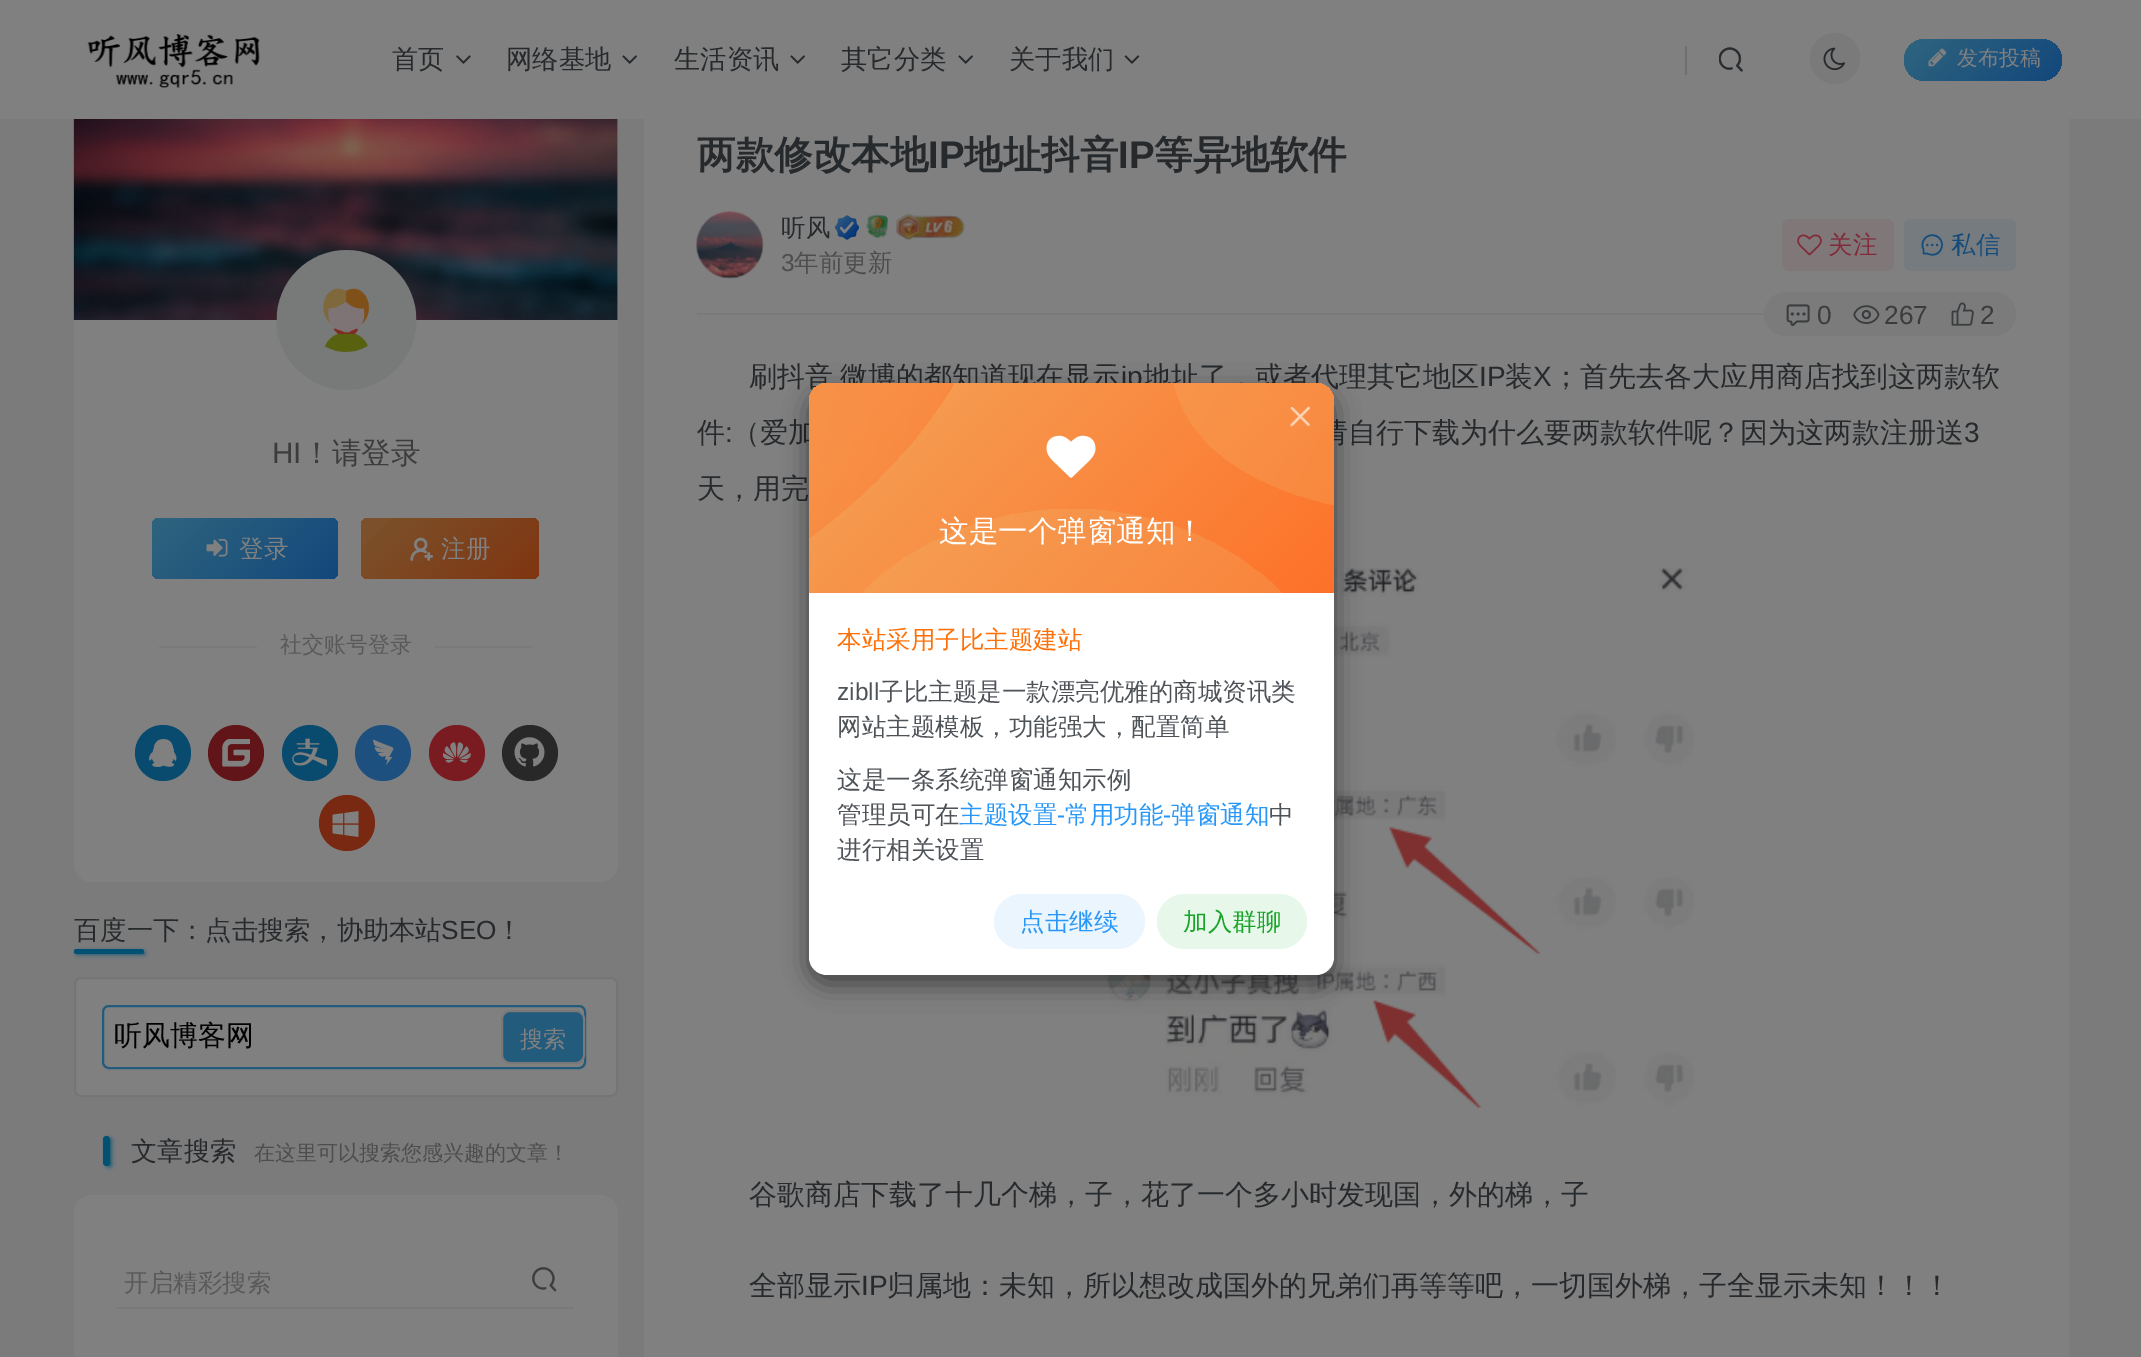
%!PS-Adobe-3.0
%%BoundingBox: 0 0 2141 1357
%%LanguageLevel: 3
%%Pages: 1
%%EndComments
%%BeginProlog
/setink { dup -16 bitshift 255 div exch dup -8 bitshift 255 and 255 div exch 255 and 255 div setrgbcolor } def
/usefont { [ exch dup neg 0 0 3 -1 roll 0 0 ] selectfont } def
/setalpha { dup .setfillconstantalpha .setstrokeconstantalpha } def
/disc { newpath 0 360 arc closepath } def
/rrect { 5 dict begin { /r /h /w /y /x } { exch def } forall
  x r add y moveto x w add y 2 copy h add r arct x w add y h add x 1 index r arct
  x y h add x y r arct x y 2 copy exch w add exch r arct closepath end } def
/softshadow { 12 dict begin { /a /b /q /h /w /y /x } { exch def } forall gsave /was 0 def
  9 -2 -9 { dup b mul 4 div /e exch def 1 sub .425 mul 2.718 exch exp 1 add a .99 .min exch div /now exch def
    1 1 now sub 1 was sub div sub setalpha /was now def
    w h .min e 2 mul add 0 gt { x e sub y e sub w e 2 mul add h e 2 mul add
      q e add b .6 mul add w h .min 2 div e add .min 0 .max rrect fill } if } for grestore end } def
/drawimage { 5 dict begin { /h /w /y /x /name } { exch def } forall
  gsave x y translate w h scale
  w h 8 [w 0 0 h 0 0] name (r) file false 3 colorimage grestore end } def
%%EndProlog
%%BeginSetup
<< /PageSize [2141 1357] /PageUsesTransparency true >> setpagedevice
%%EndSetup
%%Page: 1 1
0 .pushpdf14devicefilter
0 1357 translate 1 -1 scale
4 setmiterlimit
16#7B7B7C setink
0 0 2141 1357 rectfill
16#808080 setink
74 47 544 835 18 rrect fill
644 103 1425 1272 18 rrect fill
0 0 2141 119 rectfill
(img1.raw) 87 34 173 54 drawimage
/WenQuanYiZenHei-Medium 26.25 usefont
16#272A2C setink
392 68 moveto (首页) show
(img2.raw) 456 55 15 9 drawimage
506 68 moveto (网络基地) show
(img3.raw) 622 55 15 9 drawimage
674 68 moveto (生活资讯) show
(img3.raw) 790 55 15 9 drawimage
841 68 moveto (其它分类) show
(img3.raw) 958 55 15 9 drawimage
1009 68 moveto (关于我们) show
(img4.raw) 1124 55 16 9 drawimage
16#6E6F6F setink
1685 46 2 29 rectfill
(img5.raw) 1719 47 24 25 drawimage
16#7A7A7A setink
1810 33 50 51 25 rrect fill
(img6.raw) 1823 47 22 24 drawimage
gsave 1904 39 158 42 21 rrect clip newpath
<< /ShadingType 2 /ColorSpace /DeviceRGB /Coords [1933 10 2033 109] /Extend [true true] /Function << /FunctionType 3 /Domain [0 1] /Functions [<< /FunctionType 2 /Domain [0 1] /C0 [0.176 0.384 0.494] /C1 [0.176 0.384 0.494] /N 1 >> << /FunctionType 2 /Domain [0 1] /C0 [0.176 0.384 0.494] /C1 [0.075 0.278 0.486] /N 1 >>] /Bounds [0.1] /Encode [0 1 0 1] >> >> shfill grestore
(img7.raw) 1928 48 19 19 drawimage
/WenQuanYiZenHei-Medium 21 usefont
16#808080 setink
1957 65 moveto (发布投稿) show
(img8.raw) 73 119 545 201 drawimage
(img9.raw) 276 250 141 140 drawimage
/LiberationSans-Regular 29.5 usefont
16#3C3C3C setink
272 463 moveto (HI) show
/WenQuanYiZenHei-Medium 29.5 usefont
302 463 moveto (！请登录) show
gsave 152 518 186 61 7 rrect clip newpath
<< /ShadingType 2 /ColorSpace /DeviceRGB /Coords [183 487 307 610] /Extend [true true] /Function << /FunctionType 3 /Domain [0 1] /Functions [<< /FunctionType 2 /Domain [0 1] /C0 [0.176 0.384 0.494] /C1 [0.176 0.384 0.494] /N 1 >> << /FunctionType 2 /Domain [0 1] /C0 [0.176 0.384 0.494] /C1 [0.075 0.278 0.486] /N 1 >>] /Bounds [0.1] /Encode [0 1 0 1] >> >> shfill grestore
(img10.raw) 206 539 22 18 drawimage
/WenQuanYiZenHei-Medium 24.5 usefont
16#808080 setink
239 557 moveto (登录) show
gsave 361 518 178 61 7 rrect clip newpath
<< /ShadingType 2 /ColorSpace /DeviceRGB /Coords [390 489 510 609] /Extend [true true] /Function << /FunctionType 3 /Domain [0 1] /Functions [<< /FunctionType 2 /Domain [0 1] /C0 [0.482 0.314 0.165] /C1 [0.482 0.314 0.165] /N 1 >> << /FunctionType 2 /Domain [0 1] /C0 [0.482 0.314 0.165] /C1 [0.502 0.208 0.067] /N 1 >>] /Bounds [0.1] /Encode [0 1 0 1] >> >> shfill grestore
(img11.raw) 410 537 23 24 drawimage
441 557 moveto (注册) show
16#7A7A7A setink
159 646 98 2 rectfill
/WenQuanYiZenHei-Medium 22 usefont
16#595959 setink
280 652 moveto (社交账号登录) show
16#7A7A7A setink
434 646 98 2 rectfill
16#094B6E setink
163 753 28 disc fill
(img12.raw) 149 739 28 28 drawimage
16#611518 setink
236 753 28 disc fill
(img13.raw) 222 739 28 28 drawimage
16#094B6E setink
310 753 28 disc fill
(img14.raw) 292 738 35 29 drawimage
16#1D507E setink
383 753 28 disc fill
(img15.raw) 373 739 21 27 drawimage
16#791B20 setink
457 753 28 disc fill
(img16.raw) 443 742 28 21 drawimage
16#282828 setink
530 753 28 disc fill
(img17.raw) 514 737 31 30 drawimage
16#792811 setink
347 823 28 disc fill
(img18.raw) 332 811 27 26 drawimage
/WenQuanYiZenHei-Medium 26.25 usefont
16#272A2C setink
74 939 moveto (百度一下：点击搜索，协助本站) show
/LiberationSans-Regular 26.25 usefont
441 939 moveto (SEO) show
/WenQuanYiZenHei-Medium 26.25 usefont
496 939 moveto (！) show
16#005172 setink
77 952 67 2 1 2.5 1 softshadow
74 949 70 5 2.5 rrect fill
16#808080 setink
75 978 542 118 6 rrect gsave fill grestore
16#757575 setink
2 setlinewidth
stroke
16#235B7C setink
103 1006 482 62 6 rrect stroke
/WenQuanYiZenHei-Medium 28 usefont
16#000000 setink
114 1045 moveto (听风博客网) show
16#235B7C setink
502 1011 82 52 8 rrect gsave fill grestore
16#797979 setink
stroke
/WenQuanYiZenHei-Medium 23 usefont
16#808080 setink
520 1047 moveto (搜索) show
16#005172 setink
107 1139 4 27 2 2.5 1 softshadow
103 1136 7 30 3.5 rrect fill
/WenQuanYiZenHei-Medium 26.25 usefont
16#272A2C setink
131 1160 moveto (文章搜索) show
/WenQuanYiZenHei-Medium 21 usefont
16#4D4D4D setink
254 1160 moveto (在这里可以搜索您感兴趣的文章！) show
16#808080 setink
74 1195 544 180 18 rrect fill
/WenQuanYiZenHei-Medium 24.5 usefont
16#595959 setink
124 1291 moveto (开启精彩搜索) show
(img19.raw) 532 1267 25 25 drawimage
16#7A7A7A setink
117 1307 457 2 rectfill
/WenQuanYiZenHei-Bold 38.5 usefont
16#272A2C setink
697 168 moveto (两款修改本地) show
/LiberationSans-Bold 38.5 usefont
928 168 moveto (IP) show
/WenQuanYiZenHei-Bold 38.5 usefont
964 168 moveto (地址抖音) show
/LiberationSans-Bold 38.5 usefont
1118 168 moveto (IP) show
/WenQuanYiZenHei-Bold 38.5 usefont
1154 168 moveto (等异地软件) show
(img20.raw) 696 211 68 68 drawimage
/WenQuanYiZenHei-Medium 24.5 usefont
781 236 moveto (听风) show
(img21.raw) 835 215 24 25 drawimage
(img22.raw) 866 214 22 25 drawimage
(img23.raw) 896 213 69 27 drawimage
/LiberationSans-Regular 24.5 usefont
16#4D4D4D setink
781 271 moveto (3) show
/WenQuanYiZenHei-Medium 24.5 usefont
794 271 moveto (年前更新) show
16#807779 setink
1782 219 112 52 7 rrect fill
(img24.raw) 1797 234 25 22 drawimage
16#802A3A setink
1828 253 moveto (关注) show
16#757B7F setink
1904 219 112 52 7 rrect fill
(img25.raw) 1921 234 22 22 drawimage
16#154C7C setink
1951 253 moveto (私信) show
16#7A7A7A setink
697 313 1319 2 rectfill
16#7B7B7C setink
1764 292 252 44 22 rrect fill
(img26.raw) 1786 304 24 23 drawimage
/LiberationSans-Regular 26.25 usefont
16#3C3C3C setink
1817 324 moveto (0) show
(img27.raw) 1853 305 27 19 drawimage
1884 324 moveto (267) show
(img28.raw) 1951 302 23 24 drawimage
1980 324 moveto (2) show
/WenQuanYiZenHei-Medium 28 usefont
16#272A2C setink
749 386 moveto -1 0 32 (刷抖音 微博的都知道现在显示) widthshow
/LiberationSans-Regular 28 usefont
1121 386 moveto (ip) show
/WenQuanYiZenHei-Medium 28 usefont
1143 386 moveto (地址了，或者代理其它地区) show
/LiberationSans-Regular 28 usefont
1479 386 moveto (IP) show
/WenQuanYiZenHei-Medium 28 usefont
1505 386 moveto (装) show
/LiberationSans-Regular 28 usefont
1533 386 moveto (X) show
/WenQuanYiZenHei-Medium 28 usefont
1552 386 moveto (；首先去各大应用商店找到这两款软) show
697 442 moveto (件) show
/LiberationSans-Regular 28 usefont
725 442 moveto (:) show
/WenQuanYiZenHei-Medium 28 usefont
732 442 moveto (（爱加) show
1320 442 moveto (请自行下载为什么要两款软件呢？因为这两款注册送) show
/LiberationSans-Regular 28 usefont
1964 442 moveto (3) show
/WenQuanYiZenHei-Medium 28 usefont
697 498 moveto (天，用完) show
(img29.raw) 1017 568 677 540 drawimage
749 1204 moveto (谷歌商店下载了十几个梯，子，花了一个多小时发现国，外的梯，子) show
749 1295 moveto (全部显示) show
/LiberationSans-Regular 28 usefont
861 1295 moveto (IP) show
/WenQuanYiZenHei-Medium 28 usefont
887 1295 moveto (归属地：未知，所以想改成国外的兄弟们再等等吧，一切国外梯，子全显示未知！！！) show
16#000000 setink
809 392 525 592 18 13 0.5 softshadow
16#FFFFFF setink
809 383 525 592 18 rrect fill
gsave 827 383 moveto 1316 383 lineto 1326 383 1334 391 1334 401 curveto 1334 593 lineto 809 593 lineto 809 401 lineto 809 391 817 383 827 383 curveto closepath clip newpath
<< /ShadingType 2 /ColorSpace /DeviceRGB /Coords [914 278 1334 698] /Extend [true true] /Function << /FunctionType 3 /Domain [0 1] /Functions [<< /FunctionType 2 /Domain [0 1] /C0 [0.961 0.624 0.329] /C1 [0.961 0.624 0.329] /N 1 >> << /FunctionType 2 /Domain [0 1] /C0 [0.961 0.624 0.329] /C1 [1 0.412 0.133] /N 1 >>] /Bounds [0.1] /Encode [0 1 0 1] >> >> shfill grestore
gsave 1072 509 moveto 1155 509 1230 541 1282 593 curveto 862 593 lineto 914 541 989 509 1072 509 curveto closepath clip newpath
<< /ShadingType 2 /ColorSpace /DeviceRGB /Coords [804 495 1340 1031] /Extend [true true] /Function << /FunctionType 3 /Domain [0 1] /Functions [<< /FunctionType 2 /Domain [0 1] /C0 [0.961 0.624 0.329] /C1 [0.961 0.624 0.329] /N 1 >> << /FunctionType 2 /Domain [0 1] /C0 [0.961 0.624 0.329] /C1 [1 0.412 0.133] /N 1 >>] /Bounds [0.1] /Encode [0 1 0 1] >> >> shfill grestore
0.4 setalpha
gsave 827 383 moveto 954 383 lineto 923 436 873 491 809 538 curveto 809 401 lineto 809 391 817 383 827 383 curveto closepath clip newpath
<< /ShadingType 2 /ColorSpace /DeviceRGB /Coords [307 326 1056 472] /Extend [true true] /Function << /FunctionType 3 /Domain [0 1] /Functions [<< /FunctionType 2 /Domain [0 1] /C0 [0.961 0.624 0.329] /C1 [0.961 0.624 0.329] /N 1 >> << /FunctionType 2 /Domain [0 1] /C0 [0.961 0.624 0.329] /C1 [1 0.412 0.133] /N 1 >>] /Bounds [0.1] /Encode [0 1 0 1] >> >> shfill grestore
0.6 setalpha
gsave 1334 505 moveto 1268 490 1191 456 1174 383 curveto 1316 383 lineto 1326 383 1334 391 1334 401 curveto closepath clip newpath
<< /ShadingType 2 /ColorSpace /DeviceRGB /Coords [1194 -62 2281 468] /Extend [true true] /Function << /FunctionType 3 /Domain [0 1] /Functions [<< /FunctionType 2 /Domain [0 1] /C0 [0.961 0.624 0.329] /C1 [0.961 0.624 0.329] /N 1 >> << /FunctionType 2 /Domain [0 1] /C0 [0.961 0.624 0.329] /C1 [1 0.412 0.133] /N 1 >>] /Bounds [0.1] /Encode [0 1 0 1] >> >> shfill grestore
1 setalpha
(img30.raw) 1290 406 20 21 drawimage
(img31.raw) 1046 435 50 43 drawimage
/WenQuanYiZenHei-Medium 29.5 usefont
939 541 moveto (这是一个弹窗通知！) show
/WenQuanYiZenHei-Medium 24.5 usefont
16#FF6F06 setink
837 648 moveto (本站采用子比主题建站) show
/LiberationSans-Regular 24.5 usefont
16#4E5358 setink
837 700 moveto (zibll) show
/WenQuanYiZenHei-Medium 24.5 usefont
[
    [(子比主题是一款漂亮优雅的商城资讯类) 879 700]
    [(网站主题模板，功能强大，配置简单) 837 735]
    [(这是一条系统弹窗通知示例) 837 788]
    [(管理员可在) 837 823]
] { aload pop moveto show } forall
16#2997F7 setink
959 823 moveto (主题设置) show
/LiberationSans-Regular 24.5 usefont
1057 823 moveto (-) show
/WenQuanYiZenHei-Medium 24.5 usefont
1065 823 moveto (常用功能) show
/LiberationSans-Regular 24.5 usefont
1163 823 moveto (-) show
/WenQuanYiZenHei-Medium 24.5 usefont
1171 823 moveto (弹窗通知) show
16#4E5358 setink
1269 823 moveto (中) show
837 858 moveto (进行相关设置) show
16#EAF5FE setink
994 894 151 55 27.5 rrect fill
16#2997F7 setink
1020 930 moveto (点击继续) show
16#E7F8EA setink
1157 894 150 55 27.5 rrect fill
16#18A52A setink
1183 930 moveto (加入群聊) show
.poppdf14devicefilter showpage
%%EOF
